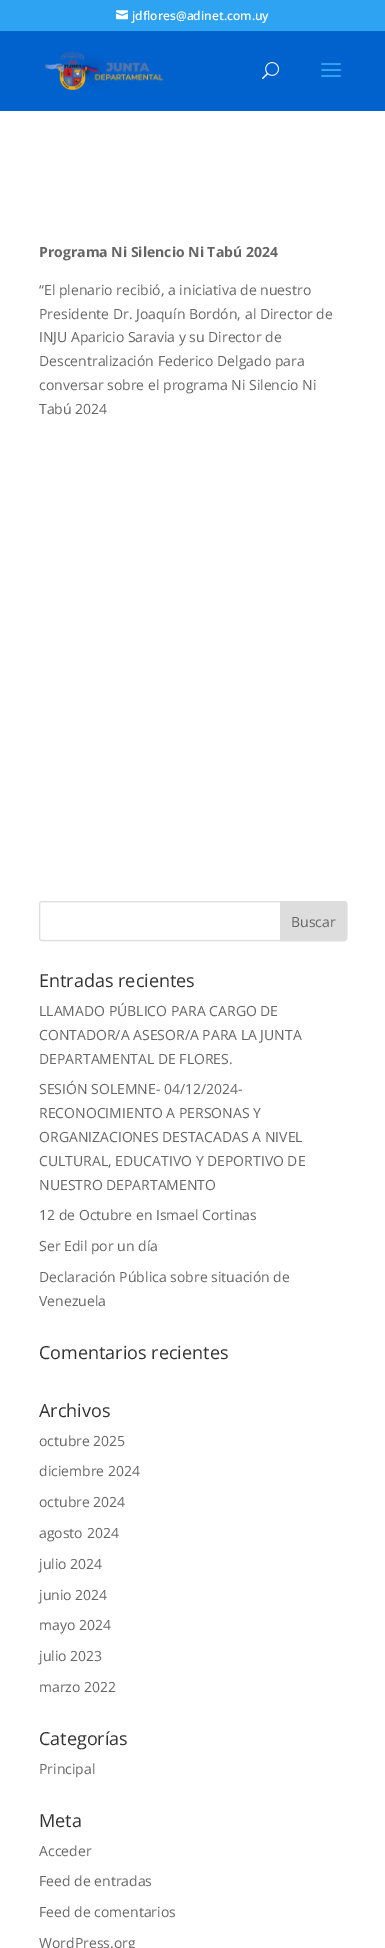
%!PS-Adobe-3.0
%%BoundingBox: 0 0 385 1948
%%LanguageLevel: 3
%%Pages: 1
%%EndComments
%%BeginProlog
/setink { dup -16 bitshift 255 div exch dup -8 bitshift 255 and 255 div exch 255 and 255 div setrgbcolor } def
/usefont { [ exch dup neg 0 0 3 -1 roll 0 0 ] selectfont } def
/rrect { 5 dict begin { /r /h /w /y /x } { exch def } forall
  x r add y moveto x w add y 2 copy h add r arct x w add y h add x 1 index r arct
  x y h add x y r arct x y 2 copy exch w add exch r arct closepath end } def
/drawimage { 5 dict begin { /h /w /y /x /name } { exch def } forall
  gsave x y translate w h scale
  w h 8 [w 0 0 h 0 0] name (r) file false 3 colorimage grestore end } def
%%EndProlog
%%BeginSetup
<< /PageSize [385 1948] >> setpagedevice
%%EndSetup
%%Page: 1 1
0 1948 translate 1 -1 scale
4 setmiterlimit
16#FFFFFF setink
0 0 385 1948 rectfill
16#2EA3F2 setink
0 0 385 31 rectfill
(img1.raw) 116 10 12 10 drawimage
/OpenSans-SemiBold 12 usefont
16#FFFFFF setink
132 20 moveto (jdflores@adinet.com.uy) show
16#0161CD setink
0 31 385 80 rectfill
(img2.raw) 45 51 119 40 drawimage
(img3.raw) 262 62 17 18 drawimage
(img4.raw) 321 63 20 14 drawimage
/OpenSans-Bold 14 usefont
16#666666 setink
39 257 moveto (Programa Ni Silencio Ni Tabú 2024) show
/OpenSans-Regular 14 usefont
[
    [(“El plenario recibió, a iniciativa de nuestro) 39 295]
    [(Presidente Dr. Joaquín Bordón, al Director de) 39 319]
    [(INJU Aparicio Saravia y su Director de) 39 342]
    [(Descentralización Federico Delgado para) 39 366]
    [(conversar sobre el programa Ni Silencio Ni) 39 390]
    [(Tabú 2024) 39 414]
] { aload pop moveto show } forall
16#DDDDDD setink
39.5 901.5 307 39 2.5 rrect stroke
280.5 901.5 moveto 344 901.5 lineto 345.5 901.5 346.5 902.5 346.5 904 curveto 346.5 938 lineto 346.5 939.5 345.5 940.5 344 940.5 curveto 280.5 940.5 lineto closepath gsave fill grestore
stroke
16#666666 setink
291 927 moveto (Buscar) show
/OpenSans-Regular 18 usefont
16#333333 setink
39 987 moveto (Entradas recientes) show
/OpenSans-Regular 14 usefont
16#666666 setink
[
    [(LLAMADO PÚBLICO PARA CARGO DE) 39 1016]
    [(CONTADOR/A ASESOR/A PARA LA JUNTA) 39 1040]
    [(DEPARTAMENTAL DE FLORES.) 39 1064]
    [(SESIÓN SOLEMNE- 04/12/2024-) 39 1094]
    [(RECONOCIMIENTO A PERSONAS Y) 39 1118]
    [(ORGANIZACIONES DESTACADAS A NIVEL) 39 1142]
    [(CULTURAL, EDUCATIVO Y DEPORTIVO DE) 39 1166]
    [(NUESTRO DEPARTAMENTO) 39 1190]
    [(12 de Octubre en Ismael Cortinas) 39 1220]
    [(Ser Edil por un día) 39 1251]
    [(Declaración Pública sobre situación de) 39 1282]
    [(Venezuela) 39 1306]
] { aload pop moveto show } forall
/OpenSans-Regular 18 usefont
16#333333 setink
39 1359 moveto (Comentarios recientes) show
39 1417 moveto (Archivos) show
/OpenSans-Regular 14 usefont
16#666666 setink
[
    [(octubre 2025) 39 1446]
    [(diciembre 2024) 39 1476]
    [(octubre 2024) 39 1507]
    [(agosto 2024) 39 1538]
    [(julio 2024) 39 1569]
    [(junio 2024) 39 1600]
    [(mayo 2024) 39 1630]
    [(julio 2023) 39 1661]
    [(marzo 2022) 39 1692]
] { aload pop moveto show } forall
/OpenSans-Regular 18 usefont
16#333333 setink
39 1745 moveto (Categorías) show
/OpenSans-Regular 14 usefont
16#666666 setink
39 1774 moveto (Principal) show
/OpenSans-Regular 18 usefont
16#333333 setink
39 1827 moveto (Meta) show
/OpenSans-Regular 14 usefont
16#666666 setink
[
    [(Acceder) 39 1856]
    [(Feed de entradas) 39 1886]
    [(Feed de comentarios) 39 1917]
    [(WordPress.org) 39 1948]
] { aload pop moveto show } forall
showpage
%%EOF
